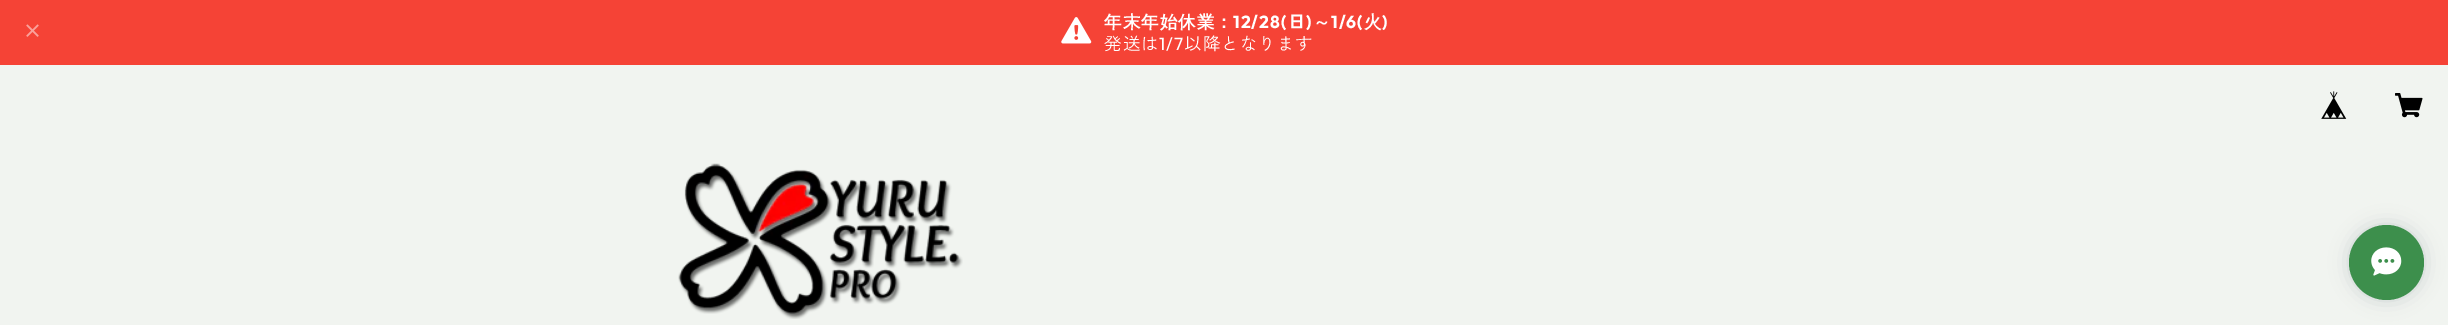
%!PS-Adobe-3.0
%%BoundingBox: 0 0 2448 325
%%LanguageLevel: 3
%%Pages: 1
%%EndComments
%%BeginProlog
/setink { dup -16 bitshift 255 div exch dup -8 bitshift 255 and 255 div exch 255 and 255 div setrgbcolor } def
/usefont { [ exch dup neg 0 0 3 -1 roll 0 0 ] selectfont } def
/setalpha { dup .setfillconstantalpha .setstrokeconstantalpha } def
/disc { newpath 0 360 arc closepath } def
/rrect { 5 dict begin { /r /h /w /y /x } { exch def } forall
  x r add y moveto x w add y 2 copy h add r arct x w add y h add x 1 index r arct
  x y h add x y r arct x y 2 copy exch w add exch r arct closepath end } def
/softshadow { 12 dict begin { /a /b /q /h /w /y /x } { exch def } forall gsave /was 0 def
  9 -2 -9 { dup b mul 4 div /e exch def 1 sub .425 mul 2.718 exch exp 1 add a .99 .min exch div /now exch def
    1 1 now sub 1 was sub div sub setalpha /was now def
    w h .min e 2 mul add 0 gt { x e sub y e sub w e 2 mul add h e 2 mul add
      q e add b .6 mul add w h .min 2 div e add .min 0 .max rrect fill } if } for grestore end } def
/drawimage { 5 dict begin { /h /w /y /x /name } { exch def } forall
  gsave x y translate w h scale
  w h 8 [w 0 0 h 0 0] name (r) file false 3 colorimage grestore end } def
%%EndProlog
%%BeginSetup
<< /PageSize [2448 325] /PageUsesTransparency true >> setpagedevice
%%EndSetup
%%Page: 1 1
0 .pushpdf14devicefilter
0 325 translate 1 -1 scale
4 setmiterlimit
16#F1F4F0 setink
0 0 2448 325 rectfill
16#F54336 setink
0 0 2448 65 rectfill
(img1.raw) 26 24 13 13 drawimage
(img2.raw) 1061 17 31 27 drawimage
/WenQuanYiZenHei-Bold 17.5 usefont
16#FFFFFF setink
1104 28 moveto 1 0 (年末年始休業：) ashow
/Outfit-Bold 17.5 usefont
1233 28 moveto 1 0 (12/28\() ashow
/ZenKakuGothicNew-Bold 17.5 usefont
1288 28 moveto 1 0 (日) ashow
/Outfit-Bold 17.5 usefont
1306 28 moveto 1 0 (\)) ashow
/WenQuanYiZenHei-Bold 17.5 usefont
1313 28 moveto 1 0 (～) ashow
/Outfit-Bold 17.5 usefont
1331 28 moveto 1 0 (1/6\() ashow
/WenQuanYiZenHei-Bold 17.5 usefont
1364 28 moveto 1 0 (火) ashow
/Outfit-Bold 17.5 usefont
1382 28 moveto 1 0 (\)) ashow
/ZenKakuGothicNew-Regular 17.5 usefont
1104 50 moveto 1 0 (発送は) ashow
/Outfit-Regular 17.5 usefont
1159 50 moveto 1 0 (1/7) ashow
/ZenKakuGothicNew-Regular 17.5 usefont
1184 50 moveto 1 0 (以降となります) ashow
(img3.raw) 2321 91 26 28 drawimage
(img4.raw) 2395 93 28 25 drawimage
(img5.raw) 678 163 285 156 drawimage
16#334258 setink
2349 225 75 75 37.5 9.5 0.2 softshadow
16#3D8F4C setink
2386.5 262.5 37.5 disc fill
(img6.raw) 2371 247 31 29 drawimage
.poppdf14devicefilter showpage
%%EOF
